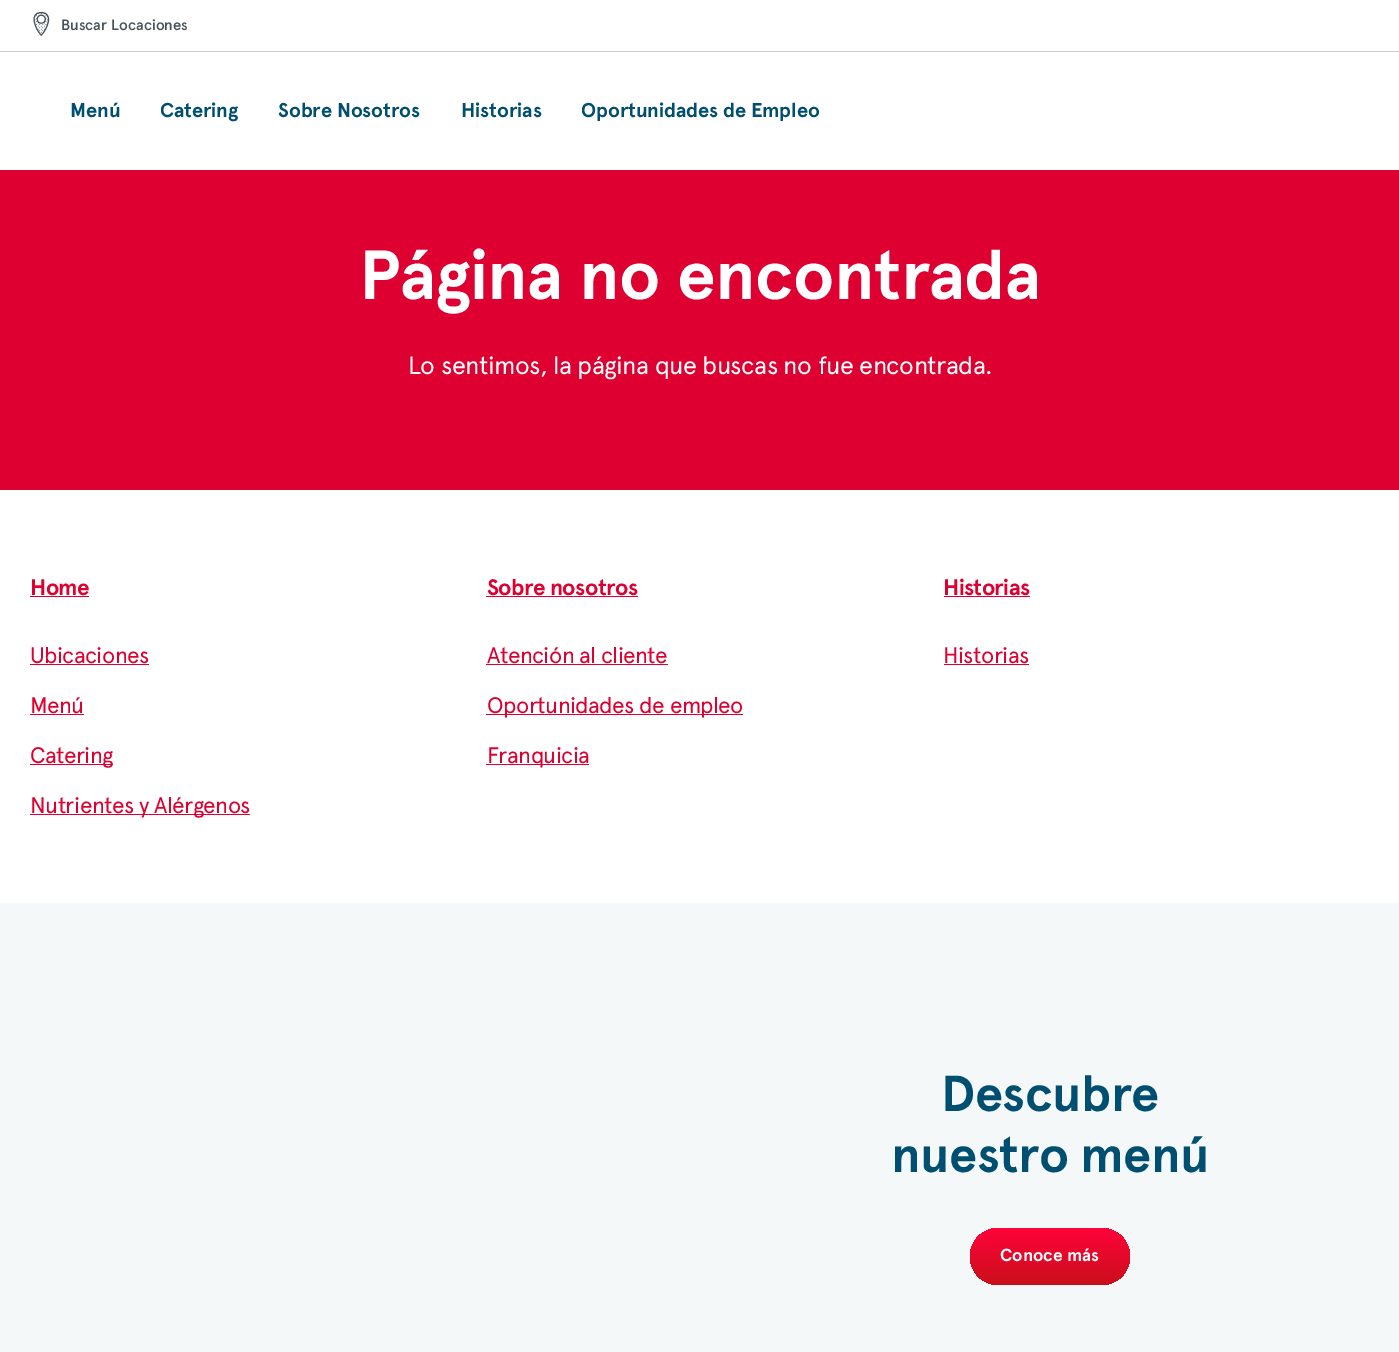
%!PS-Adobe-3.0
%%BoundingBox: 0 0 1399 1352
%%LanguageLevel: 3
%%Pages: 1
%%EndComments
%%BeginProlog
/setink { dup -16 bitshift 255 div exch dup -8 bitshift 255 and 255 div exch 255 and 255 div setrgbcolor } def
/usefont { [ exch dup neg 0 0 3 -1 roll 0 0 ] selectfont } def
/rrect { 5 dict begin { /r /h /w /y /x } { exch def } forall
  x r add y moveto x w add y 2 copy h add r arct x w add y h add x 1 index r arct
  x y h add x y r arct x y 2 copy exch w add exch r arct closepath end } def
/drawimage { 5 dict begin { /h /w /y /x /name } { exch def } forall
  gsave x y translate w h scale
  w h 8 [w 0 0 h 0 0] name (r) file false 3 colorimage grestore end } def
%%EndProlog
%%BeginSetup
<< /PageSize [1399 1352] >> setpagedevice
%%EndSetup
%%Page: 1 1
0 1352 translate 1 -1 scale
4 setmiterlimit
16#FFFFFF setink
0 0 1399 1352 rectfill
16#CCCCCC setink
0 51 1399 1 rectfill
(img1.raw) 33 11 17 25 drawimage
/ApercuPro-Medium 15 usefont
16#485259 setink
61 30 moveto (Buscar Locaciones) show
/ApercuPro-Bold 20 usefont
16#004F71 setink
70 117 moveto -0.1 0 (Menú) ashow
160 117 moveto -0.1 0 (Catering) ashow
278 117 moveto -0.1 0 (Sobre Nosotros) ashow
461 117 moveto -0.1 0 (Historias) ashow
581 117 moveto -0.1 0 (Oportunidades de Empleo) ashow
16#DD0031 setink
0 170 1399 320 rectfill
/ApercuPro-Bold 69.5 usefont
16#FFFFFF setink
359 299 moveto -0.62 0 (Página no encontrada) ashow
/ApercuPro-Regular 25 usefont
408 374 moveto -0.62 0 (Lo sentimos, la página que buscas no fue encontrada.) ashow
/ApercuPro-Bold 22.5 usefont
16#DD0031 setink
30 595 moveto -0.62 0 (Home) ashow
30 596 59 1 rectfill
/ApercuPro-Regular 22.5 usefont
30 663 moveto -0.62 0 (Ubicaciones) ashow
30 664 119 1 rectfill
30 713 moveto -0.62 0 (Menú) ashow
30 714 54 1 rectfill
30 764 83 1 rectfill
30 763 moveto -0.62 0 (Catering) ashow
30 814 220 1 rectfill
30 813 moveto -0.62 0 (Nutrientes y Alérgenos) ashow
/ApercuPro-Bold 22.5 usefont
487 595 moveto -0.62 0 (Sobre nosotros) ashow
486 596 152 1 rectfill
/ApercuPro-Regular 22.5 usefont
487 663 moveto -0.62 0 (Atención al cliente) ashow
486 664 182 1 rectfill
486 714 257 1 rectfill
487 713 moveto -0.62 0 (Oportunidades de empleo) ashow
486 764 103 1 rectfill
487 763 moveto -0.62 0 (Franquicia) ashow
/ApercuPro-Bold 22.5 usefont
943 595 moveto -0.62 0 (Historias) ashow
944 596 86 1 rectfill
/ApercuPro-Regular 22.5 usefont
943 663 moveto -0.62 0 (Historias) ashow
944 664 85 1 rectfill
16#F4F8F9 setink
0 903 1399 449 rectfill
/ApercuPro-Bold 50.5 usefont
16#004F71 setink
941 1111 moveto -0.62 0 (Descubre) ashow
891 1172 moveto -0.62 0 (nuestro menú) ashow
gsave 970 1228 160 57 28.5 rrect clip newpath
<< /ShadingType 2 /ColorSpace /DeviceRGB /Coords [1050 1285 1050 1228] /Extend [true true] /Function << /FunctionType 2 /Domain [0 1] /C0 [0.792 0.059 0.102] /C1 [1 0.012 0.231] /N 1 >> >> shfill grestore
/ApercuPro-Bold 17.5 usefont
16#FFFFFF setink
1000 1261 moveto (Conoce más) show
showpage
%%EOF
